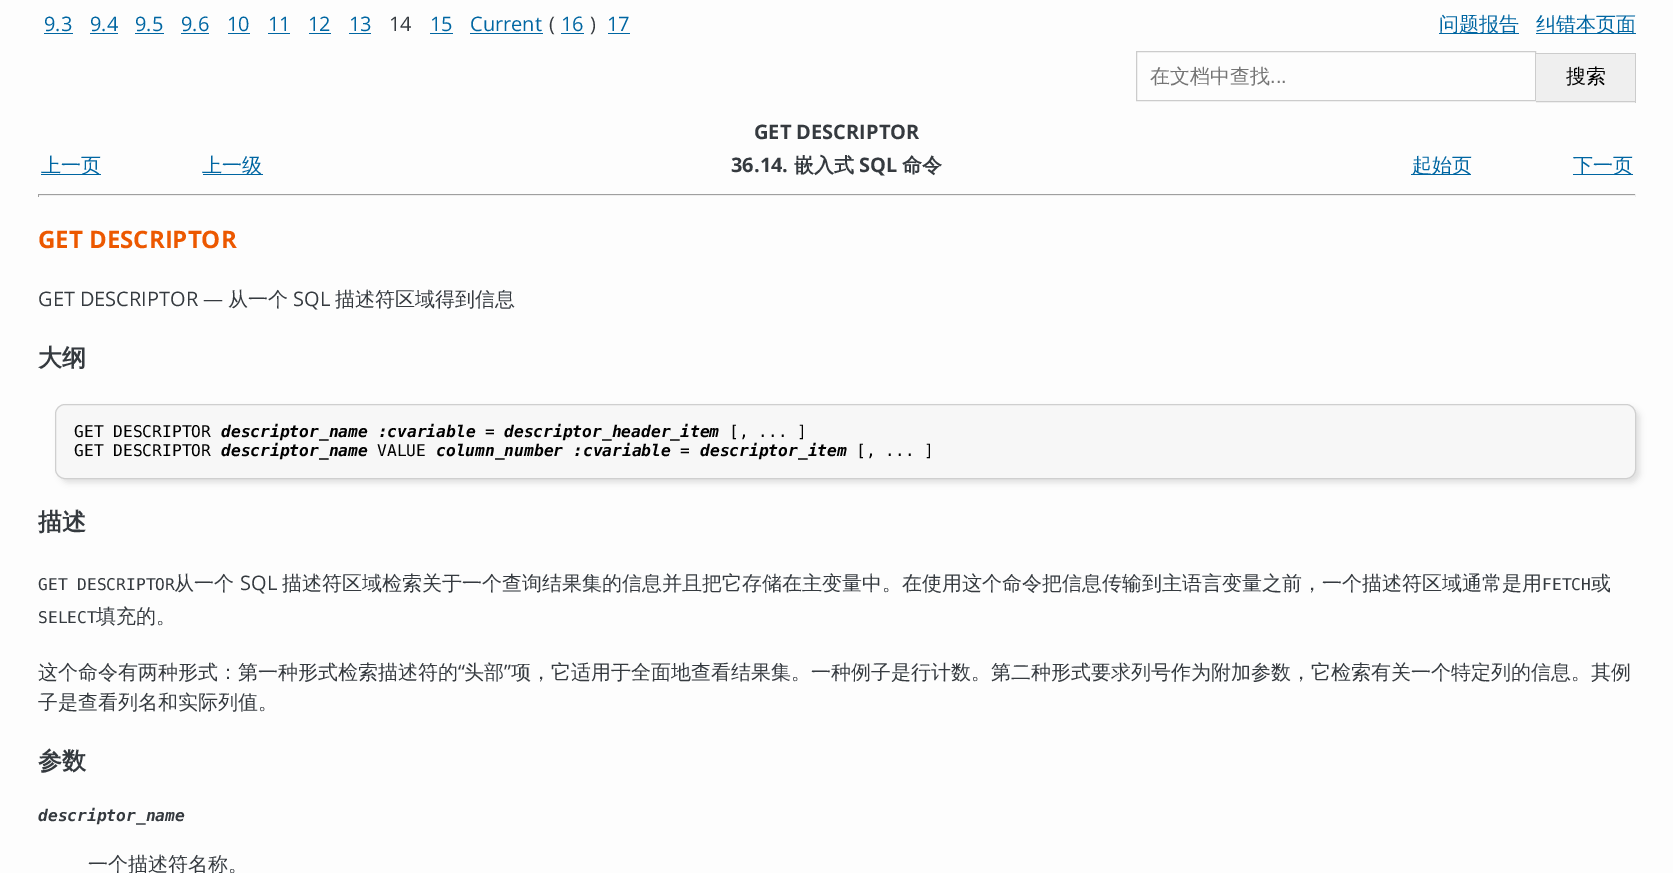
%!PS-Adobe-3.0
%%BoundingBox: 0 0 1673 873
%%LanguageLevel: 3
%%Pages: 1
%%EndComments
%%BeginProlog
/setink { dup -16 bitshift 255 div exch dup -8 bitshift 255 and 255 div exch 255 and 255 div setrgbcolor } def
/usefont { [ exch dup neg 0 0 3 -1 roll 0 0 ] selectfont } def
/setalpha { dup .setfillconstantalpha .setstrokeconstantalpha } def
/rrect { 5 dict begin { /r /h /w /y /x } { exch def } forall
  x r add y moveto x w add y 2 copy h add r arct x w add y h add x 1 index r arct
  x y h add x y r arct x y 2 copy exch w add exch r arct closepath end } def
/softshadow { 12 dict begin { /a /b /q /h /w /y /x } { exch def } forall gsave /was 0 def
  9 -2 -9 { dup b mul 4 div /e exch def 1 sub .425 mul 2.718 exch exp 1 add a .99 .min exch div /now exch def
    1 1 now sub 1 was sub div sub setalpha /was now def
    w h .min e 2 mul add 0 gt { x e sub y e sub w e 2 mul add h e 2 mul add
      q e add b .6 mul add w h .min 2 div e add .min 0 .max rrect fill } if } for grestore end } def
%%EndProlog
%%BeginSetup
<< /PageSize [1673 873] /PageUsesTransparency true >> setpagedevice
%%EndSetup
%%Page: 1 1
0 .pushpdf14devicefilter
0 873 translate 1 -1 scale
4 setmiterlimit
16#FDFDFD setink
0 0 1673 873 rectfill
/OpenSans-Regular 20 usefont
16#0066A2 setink
44 31 moveto (9.3) show
44 33 29 1 rectfill
90 31 moveto (9.4) show
90 33 28 1 rectfill
135 31 moveto (9.5) show
135 33 29 1 rectfill
181 31 moveto (9.6) show
181 33 28 1 rectfill
227 31 moveto (10) show
228 33 22 1 rectfill
268 31 moveto (11) show
268 33 22 1 rectfill
308 31 moveto (12) show
309 33 22 1 rectfill
349 31 moveto (13) show
349 33 22 1 rectfill
16#353A3F setink
389 31 moveto (14) show
16#0066A2 setink
430 31 moveto (15) show
430 33 23 1 rectfill
470 31 moveto (Current) show
470 33 73 1 rectfill
16#353A3F setink
549 31 moveto (\() show
16#0066A2 setink
561 31 moveto (16) show
561 33 23 1 rectfill
16#353A3F setink
590 31 moveto (\)) show
16#0066A2 setink
607 31 moveto (17) show
608 33 22 1 rectfill
1439 33 80 1 rectfill
/WenQuanYiZenHei-Medium 20 usefont
1439 31 moveto (问题报告) show
1536 33 100 1 rectfill
1536 31 moveto (纠错本页面) show
16#CCCCCC setink
1136.5 51.5 399 49 rectstroke
16#757575 setink
1150 83 moveto (在文档中查找) show
/LiberationSans-Regular 20 usefont
1270 83 moveto (...) show
[
    [1536 54 99 49 16#EFEFEF]
    [1536 53 100 1 16#CCCCCC]
    [1635 53 1 50 16#CCCCCC]
    [1536 101 100 1 16#CCCCCC]
] { aload pop setink rectfill } forall
/WenQuanYiZenHei-Medium 20 usefont
16#000000 setink
1566 83 moveto (搜索) show
/OpenSans-Bold 20 usefont
16#353A3F setink
754 139 moveto (GET DESCRIPTOR) show
16#0066A2 setink
41 174 60 1 rectfill
/WenQuanYiZenHei-Medium 20 usefont
41 172 moveto (上一页) show
203 174 60 1 rectfill
202 172 moveto (上一级) show
/OpenSans-Bold 20 usefont
16#353A3F setink
731 172 moveto (36.14.) show
/WenQuanYiZenHei-Bold 20 usefont
794 172 moveto (嵌入式) show
/OpenSans-Bold 20 usefont
859 172 moveto (SQL) show
/WenQuanYiZenHei-Bold 20 usefont
902 172 moveto (命令) show
16#0066A2 setink
1411 174 60 1 rectfill
/WenQuanYiZenHei-Medium 20 usefont
1412 172 moveto (起始页) show
1573 174 60 1 rectfill
1573 172 moveto (下一页) show
[
    [38 194 1598 1 16#9F9F9F]
    [1635 194 1 3 16#EEEEEE]
    [38 195 1598 1 16#EEEEEE]
    [38 194 1 3 16#9F9F9F]
] { aload pop setink rectfill } forall
/OpenSans-Bold 24 usefont
16#EC5800 setink
38 248 moveto (GET DESCRIPTOR) show
/OpenSans-Regular 20 usefont
16#353A3F setink
38 306 moveto (GET DESCRIPTOR —) show
/WenQuanYiZenHei-Medium 20 usefont
228 306 moveto (从一个) show
/OpenSans-Regular 20 usefont
293 306 moveto (SQL) show
/WenQuanYiZenHei-Medium 20 usefont
335 306 moveto (描述符区域得到信息) show
/WenQuanYiZenHei-Bold 24 usefont
38 366 moveto (大纲) show
16#DFDFDF setink
59 408 1581 75 10 3 1 softshadow
16#F7F7F7 setink
55.5 404.5 1580 74 9.5 rrect gsave fill grestore
16#CFCFCF setink
stroke
/DejaVuSansMono-Regular 16.25 usefont
16#000000 setink
74 437 moveto (GET DESCRIPTOR) show
/DejaVuSansMono-BoldItalic 16.25 usefont
221 437 moveto (descriptor_name :cvariable) show
/DejaVuSansMono-Regular 16.25 usefont
485 437 moveto (=) show
/DejaVuSansMono-BoldItalic 16.25 usefont
504 437 moveto (descriptor_header_item) show
/DejaVuSansMono-Regular 16.25 usefont
729 437 moveto ([, ... ]) show
74 456 moveto (GET DESCRIPTOR) show
/DejaVuSansMono-BoldItalic 16.25 usefont
221 456 moveto (descriptor_name) show
/DejaVuSansMono-Regular 16.25 usefont
377 456 moveto (VALUE) show
/DejaVuSansMono-BoldItalic 16.25 usefont
436 456 moveto (column_number :cvariable) show
/DejaVuSansMono-Regular 16.25 usefont
680 456 moveto (=) show
/DejaVuSansMono-BoldItalic 16.25 usefont
700 456 moveto (descriptor_item) show
/DejaVuSansMono-Regular 16.25 usefont
856 456 moveto ([, ... ]) show
/WenQuanYiZenHei-Bold 24 usefont
16#353A3F setink
38 530 moveto (描述) show
/DejaVuSansMono-Regular 16.25 usefont
38 590 moveto (GET DESCRIPTOR) show
/WenQuanYiZenHei-Medium 20 usefont
174 590 moveto (从一个) show
/OpenSans-Regular 20 usefont
240 590 moveto (SQL) show
/WenQuanYiZenHei-Medium 20 usefont
282 590 moveto (描述符区域检索关于一个查询结果集的信息并且把它存储在主变量中。在使用这个命令把信息传输到主语言变量之前，一个描述符区域通常是用) show
/DejaVuSansMono-Regular 16.25 usefont
1542 590 moveto (FETCH) show
/WenQuanYiZenHei-Medium 20 usefont
1591 590 moveto (或) show
/DejaVuSansMono-Regular 16.25 usefont
38 623 moveto (SELECT) show
/WenQuanYiZenHei-Medium 20 usefont
96 623 moveto (填充的。) show
38 679 moveto (这个命令有两种形式：第一种形式检索描述符的) show
/OpenSans-Regular 20 usefont
458 679 moveto (“) show
/WenQuanYiZenHei-Medium 20 usefont
464 679 moveto (头部) show
/OpenSans-Regular 20 usefont
504 679 moveto (”) show
/WenQuanYiZenHei-Medium 20 usefont
511 679 moveto (项，它适用于全面地查看结果集。一种例子是行计数。第二种形式要求列号作为附加参数，它检索有关一个特定列的信息。其例) show
38 709 moveto (子是查看列名和实际列值。) show
/WenQuanYiZenHei-Bold 24 usefont
38 769 moveto (参数) show
/DejaVuSansMono-BoldItalic 16.25 usefont
38 821 moveto (descriptor_name) show
/WenQuanYiZenHei-Medium 20 usefont
88 871 moveto (一个描述符名称。) show
.poppdf14devicefilter showpage
%%EOF
